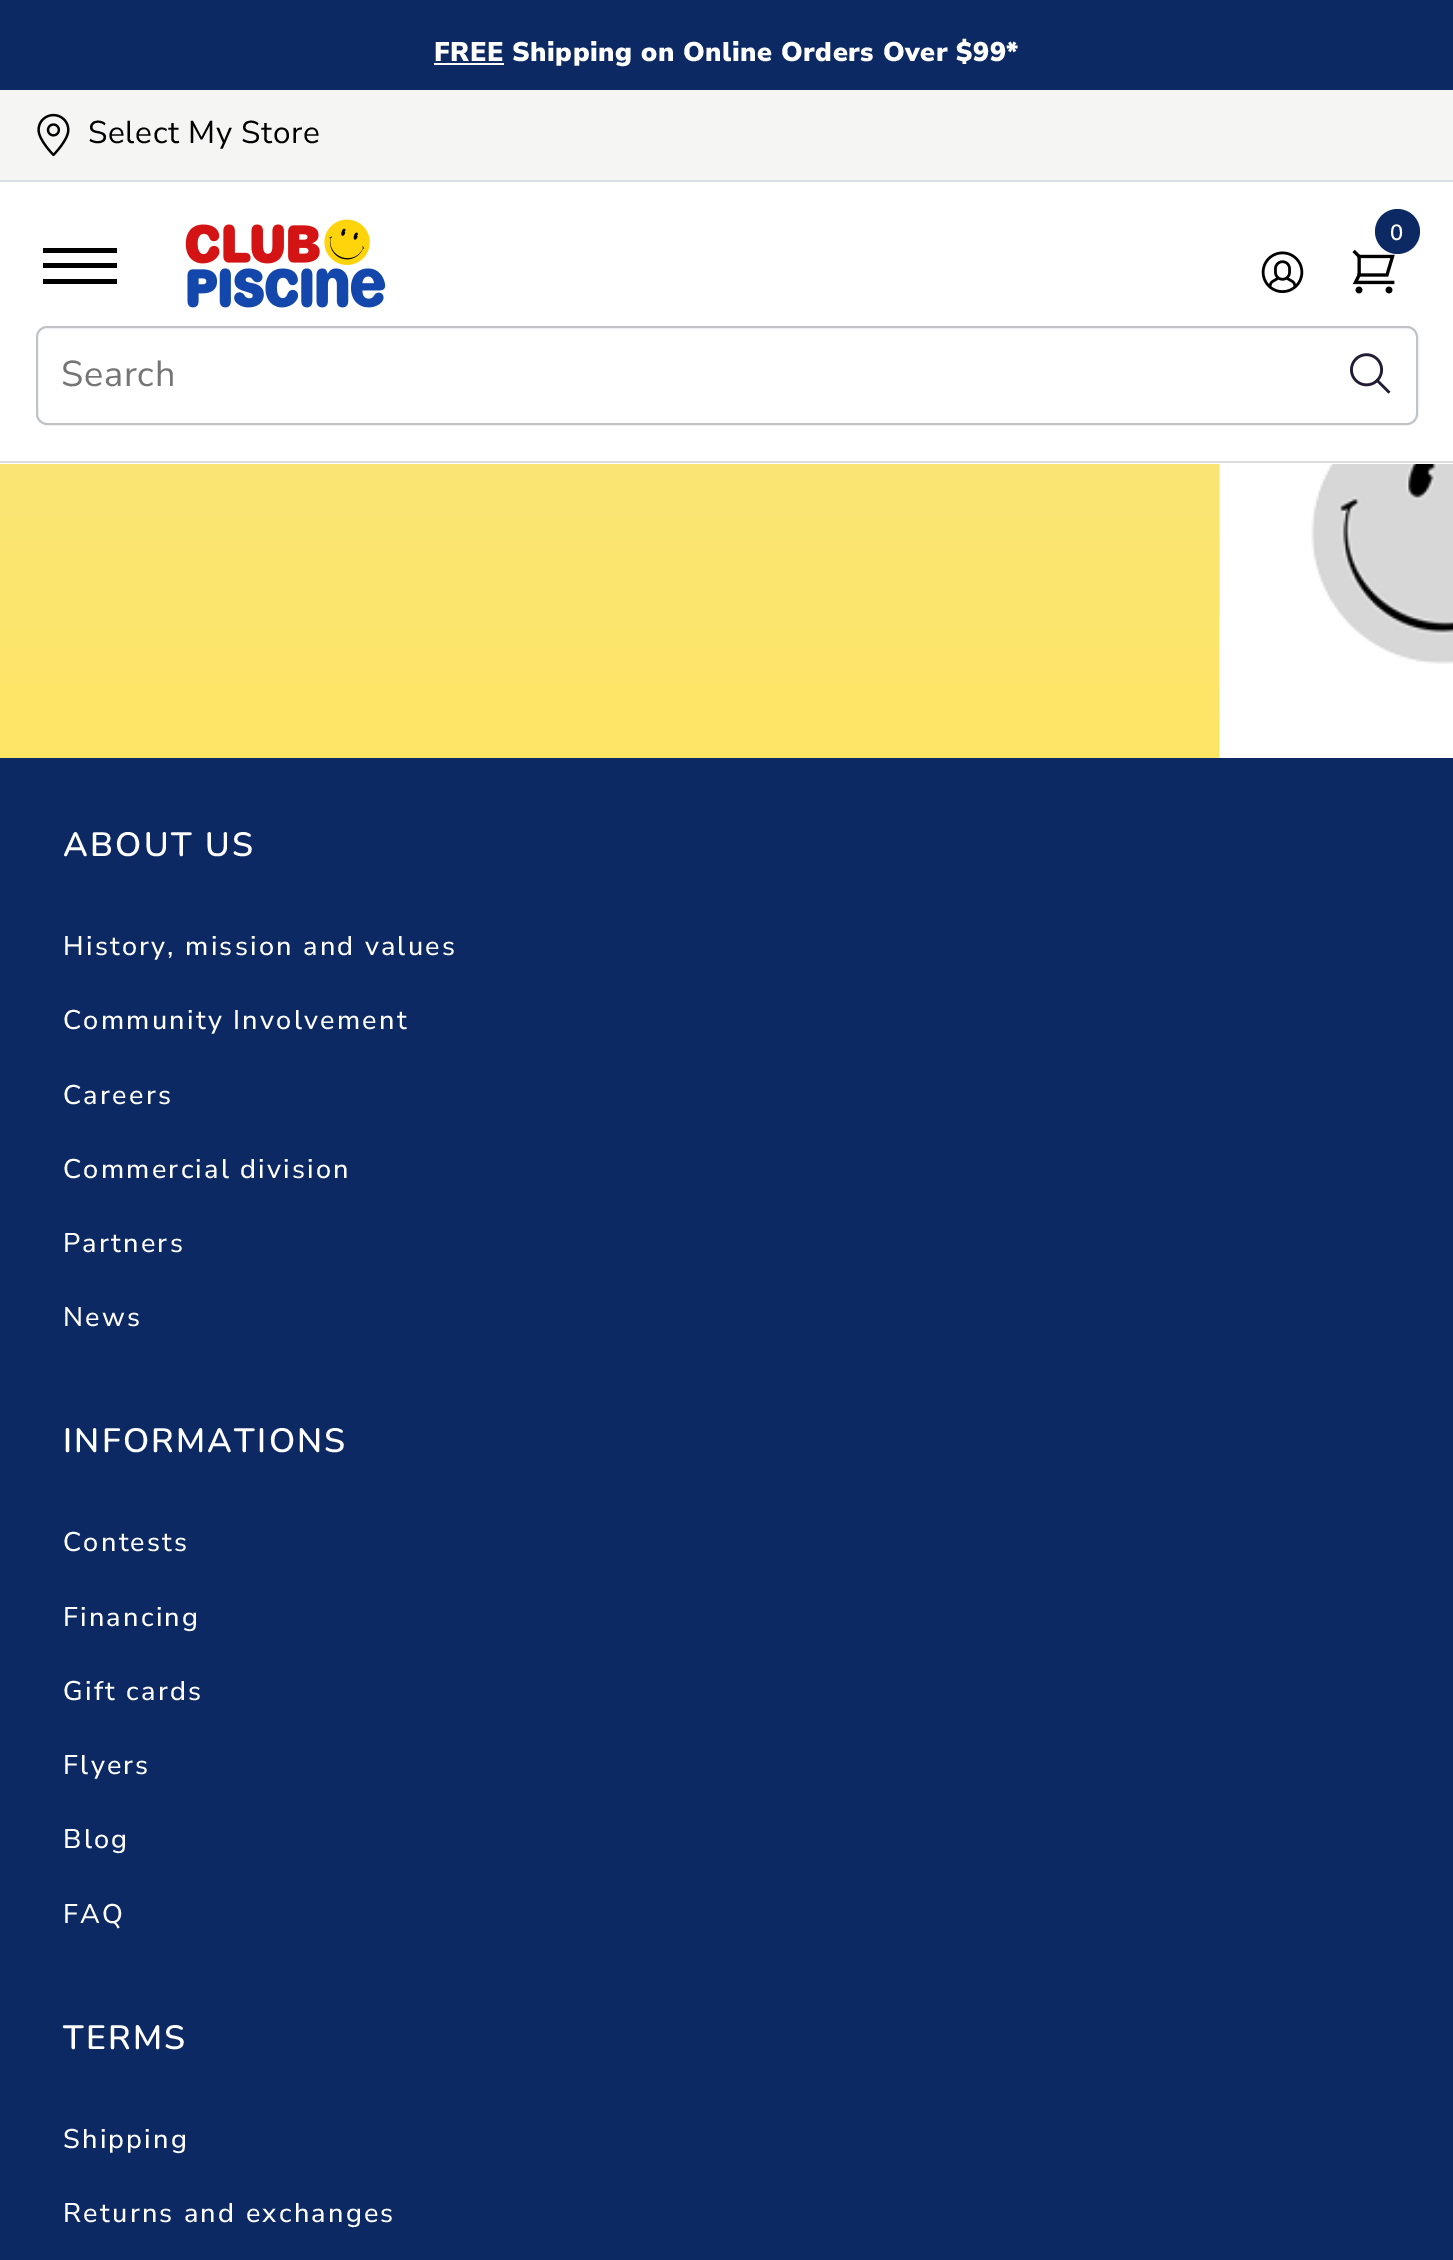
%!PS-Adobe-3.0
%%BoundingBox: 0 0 1453 2260
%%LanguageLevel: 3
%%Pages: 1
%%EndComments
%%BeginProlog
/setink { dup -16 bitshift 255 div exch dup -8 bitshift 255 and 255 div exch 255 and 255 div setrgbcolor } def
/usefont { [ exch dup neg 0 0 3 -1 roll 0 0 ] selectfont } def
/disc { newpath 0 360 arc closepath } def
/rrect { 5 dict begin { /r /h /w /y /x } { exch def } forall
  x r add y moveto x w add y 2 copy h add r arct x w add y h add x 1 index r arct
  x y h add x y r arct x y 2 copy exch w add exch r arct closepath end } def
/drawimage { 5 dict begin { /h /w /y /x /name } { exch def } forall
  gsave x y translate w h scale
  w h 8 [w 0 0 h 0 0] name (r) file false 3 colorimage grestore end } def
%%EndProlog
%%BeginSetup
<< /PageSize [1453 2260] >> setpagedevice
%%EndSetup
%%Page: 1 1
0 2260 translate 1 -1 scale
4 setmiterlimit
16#0C2963 setink
0 0 1453 2260 rectfill
[
    [0 182 1453 282 16#FFFFFF]
    [0 461 1453 2 16#DDDDDD]
    [434 63 70 2 16#FFFFFF]
] { aload pop setink rectfill } forall
/NunitoSans-Black 27 usefont
434 61 moveto 0.55 0 (FREE Shipping on Online Orders Over $99*) ashow
16#F5F5F3 setink
0 90 1453 90 rectfill
16#DADFE5 setink
0 180 1453 2 rectfill
(img1.raw) 37 113 33 44 drawimage
/NunitoSans-Regular 31.5 usefont
16#000000 setink
88 143 moveto 0.6 0 (Select My Store) ashow
(img2.raw) 185 219 201 89 drawimage
(img3.raw) 1352 249 43 45 drawimage
16#0C2963 setink
1397.5 231.5 22.5 disc fill
/NunitoSans-SemiBold 22 usefont
16#FFFFFF setink
1390 240 moveto (0) show
(img4.raw) 1261 251 43 42 drawimage
[
    [43 248 74 5 16#000000]
    [43 263 74 5 16#000000]
    [43 279 74 5 16#000000]
] { aload pop setink rectfill } forall
16#C1C4C7 setink
2 setlinewidth
37 327 1380 97 10 rrect stroke
/NunitoSans-Regular 36 usefont
16#757575 setink
61 386 moveto 0.75 0 (Search) ashow
(img5.raw) 1350 353 41 41 drawimage
gsave 0 464 moveto 1220 464 lineto 1220 758 lineto 0 758 lineto closepath clip newpath
<< /ShadingType 2 /ColorSpace /DeviceRGB /Coords [727 -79 727 758] /Extend [true true] /Function << /FunctionType 2 /Domain [0 1] /C0 [0.949 0.894 0.58] /C1 [0.996 0.898 0.396] /N 1 >> >> shfill grestore
(img6.raw) 1219 464 234 294 drawimage
/Nunito-SemiBold 33.75 usefont
16#FFFFFF setink
63 856 moveto 2.25 0 (ABOUT US) ashow
/NunitoSans-Medium 27 usefont
63 955 moveto 2.25 0 (History, mission and values) ashow
63 1029 moveto 2.25 0 (Community Involvement) ashow
63 1104 moveto 2.25 0 (Careers) ashow
63 1178 moveto 2.25 0 (Commercial division) ashow
63 1252 moveto 2.25 0 (Partners) ashow
63 1326 moveto 2.25 0 (News) ashow
/Nunito-SemiBold 33.75 usefont
63 1452 moveto 2.25 0 (INFORMATIONS) ashow
/NunitoSans-Medium 27 usefont
63 1551 moveto 2.25 0 (Contests) ashow
63 1626 moveto 2.25 0 (Financing) ashow
63 1700 moveto 2.25 0 (Gift cards) ashow
63 1774 moveto 2.25 0 (Flyers) ashow
63 1848 moveto 2.25 0 (Blog) ashow
63 1923 moveto 2.25 0 (FAQ) ashow
/Nunito-SemiBold 33.75 usefont
63 2049 moveto 2.25 0 (TERMS) ashow
/NunitoSans-Medium 27 usefont
63 2148 moveto 2.25 0 (Shipping) ashow
63 2222 moveto 2.25 0 (Returns and exchanges) ashow
showpage
%%EOF
